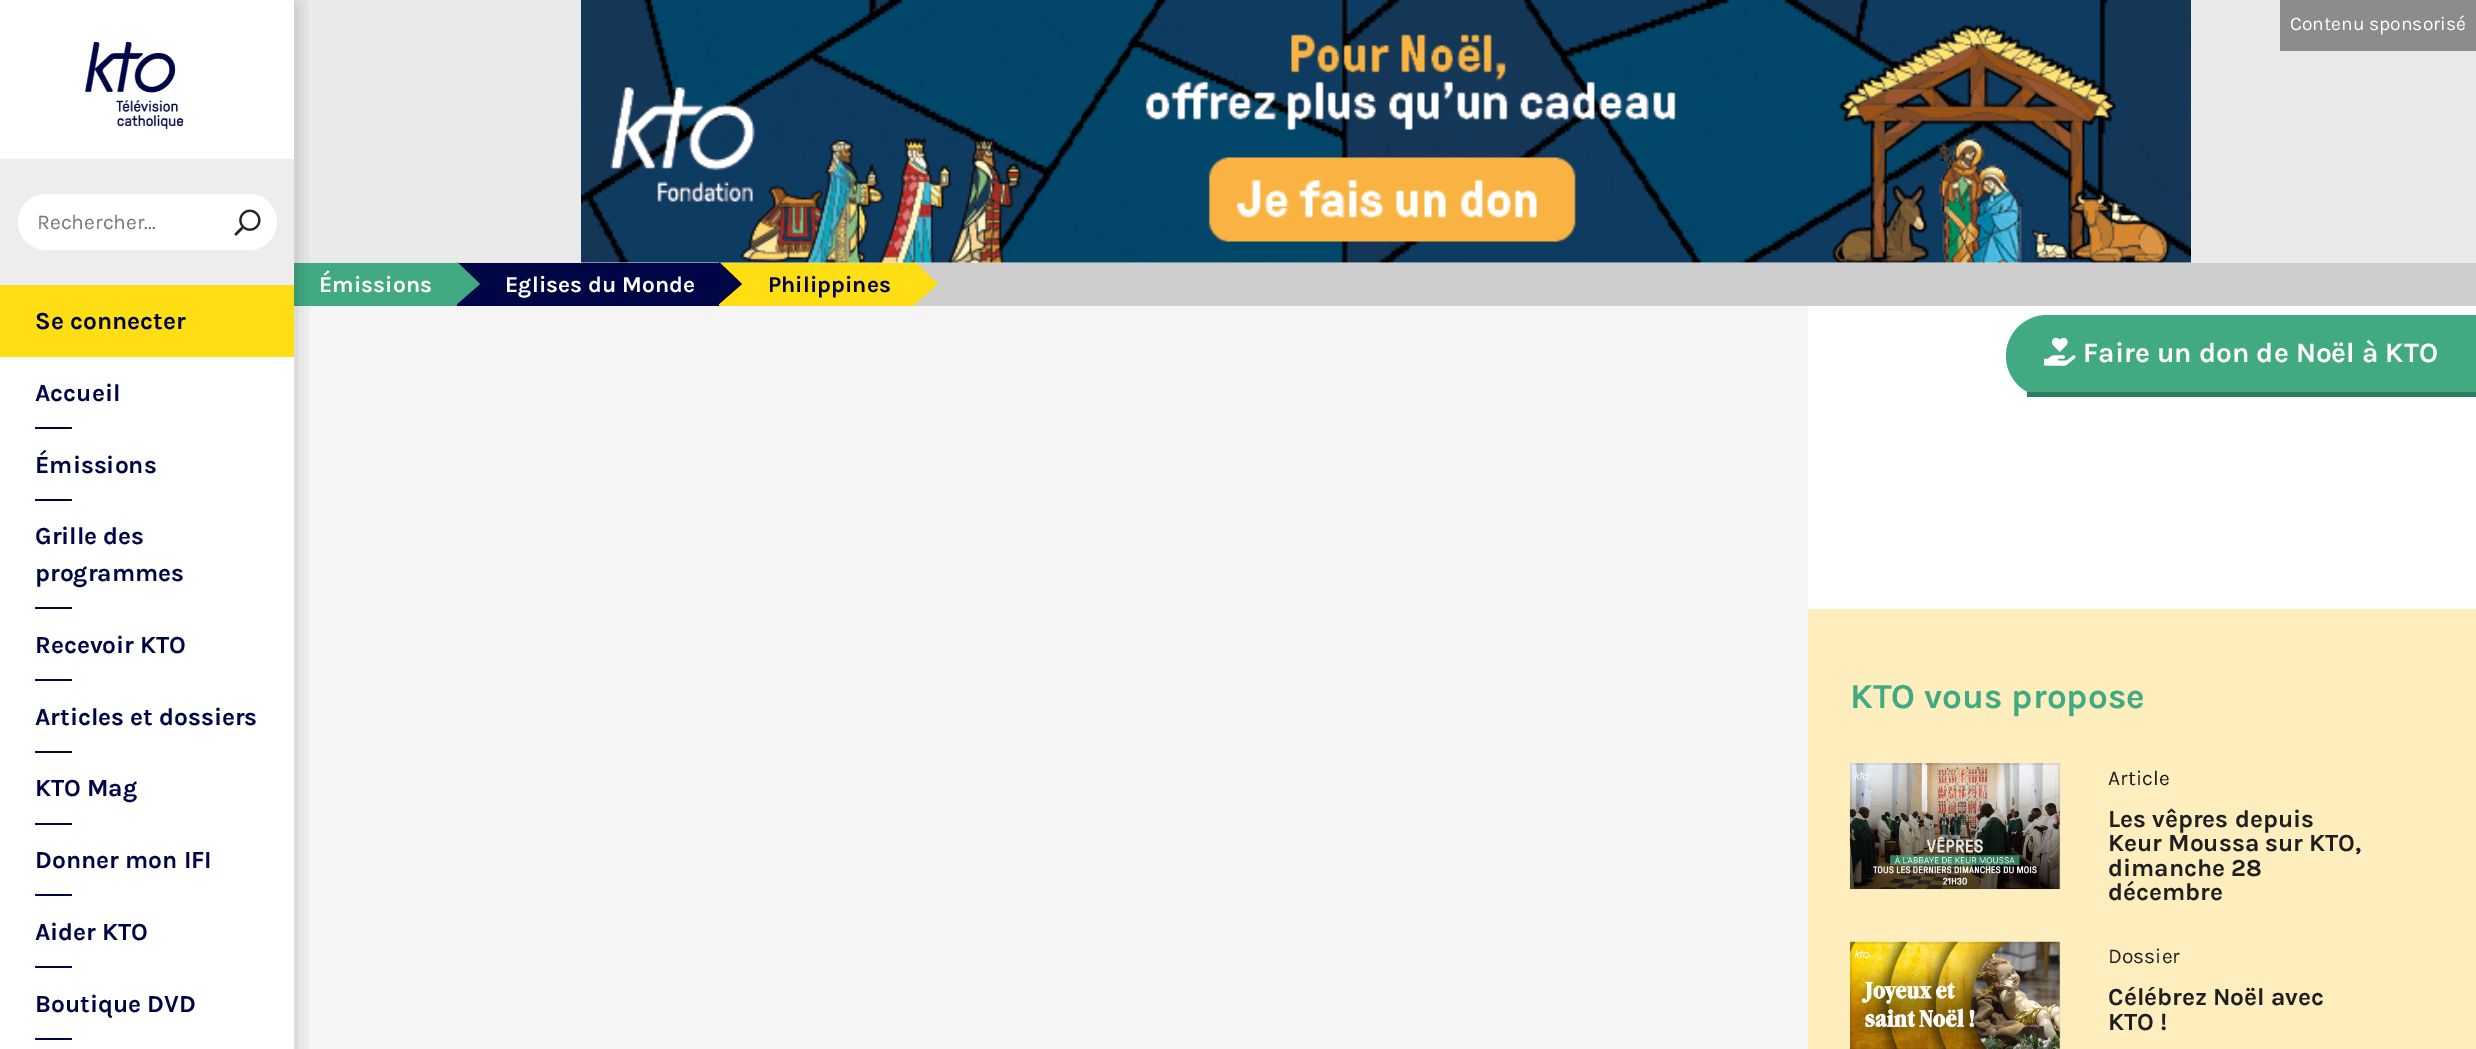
%!PS-Adobe-3.0
%%BoundingBox: 0 0 2476 1049
%%LanguageLevel: 3
%%Pages: 1
%%EndComments
%%BeginProlog
/setink { dup -16 bitshift 255 div exch dup -8 bitshift 255 and 255 div exch 255 and 255 div setrgbcolor } def
/usefont { [ exch dup neg 0 0 3 -1 roll 0 0 ] selectfont } def
/setalpha { dup .setfillconstantalpha .setstrokeconstantalpha } def
/rrect { 5 dict begin { /r /h /w /y /x } { exch def } forall
  x r add y moveto x w add y 2 copy h add r arct x w add y h add x 1 index r arct
  x y h add x y r arct x y 2 copy exch w add exch r arct closepath end } def
/softshadow { 12 dict begin { /a /b /q /h /w /y /x } { exch def } forall gsave /was 0 def
  9 -2 -9 { dup b mul 4 div /e exch def 1 sub .425 mul 2.718 exch exp 1 add a .99 .min exch div /now exch def
    1 1 now sub 1 was sub div sub setalpha /was now def
    w h .min e 2 mul add 0 gt { x e sub y e sub w e 2 mul add h e 2 mul add
      q e add b .6 mul add w h .min 2 div e add .min 0 .max rrect fill } if } for grestore end } def
/drawimage { 5 dict begin { /h /w /y /x /name } { exch def } forall
  gsave x y translate w h scale
  w h 8 [w 0 0 h 0 0] name (r) file false 3 colorimage grestore end } def
%%EndProlog
%%BeginSetup
<< /PageSize [2476 1049] /PageUsesTransparency true >> setpagedevice
%%EndSetup
%%Page: 1 1
0 .pushpdf14devicefilter
0 1049 translate 1 -1 scale
4 setmiterlimit
16#FFFFFF setink
0 0 2476 1049 rectfill
[
    [294 0 2182 263 16#EAEAEA]
    [294 263 163 43 16#41AA82]
    [294 306 1514 743 16#F5F5F5]
] { aload pop setink rectfill } forall
gsave
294 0 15 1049 rectclip
16#000000 setink
-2 4 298 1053 0 10.5 0.2 softshadow
grestore
(img1.raw) 85 42 99 87 drawimage
16#EDEDED setink
0 159 294 126 rectfill
16#FFFFFF setink
18 194 259 56 28 rrect fill
/Karla-Regular 21 usefont
16#757575 setink
37 229 moveto (Rechercher...) show
(img2.raw) 234 209 27 27 drawimage
16#FFDE14 setink
0 285 294 72 rectfill
/Karla-Bold 24.5 usefont
16#000546 setink
35 329 moveto (Se connecter) show
35 401 moveto (Accueil) show
35 427 37 2 1 rrect fill
35 473 moveto (Émissions) show
35 499 37 2 1 rrect fill
35 544 moveto (Grille des) show
35 581 moveto (programmes) show
35 607 37 2 1 rrect fill
35 653 moveto (Recevoir KTO) show
35 679 37 2 1 rrect fill
35 725 moveto (Articles et dossiers) show
35 751 37 2 1 rrect fill
35 796 moveto (KTO Mag) show
35 823 37 2 1 rrect fill
35 868 moveto (Donner mon IFI) show
35 894 37 2 1 rrect fill
35 940 moveto (Aider KTO) show
35 966 37 2 1 rrect fill
35 1012 moveto (Boutique DVD) show
35 1038 37 2 1 rrect fill
(img3.raw) 581 0 1610 263 drawimage
16#8C8C8C setink
2280 0 196 51 rectfill
/Karla-Regular 19.25 usefont
16#FFFFFF setink
2290 30 moveto (Contenu sponsorisé) show
16#CECECE setink
915 263 1561 43 rectfill
/Karla-Bold 22.75 usefont
16#FFFFFF setink
319 292 moveto (Émissions) show
16#000546 setink
457 263 262 43 rectfill
16#41AA82 setink
457 304 moveto 457 262 lineto 480 284 lineto closepath fill
16#FFFFFF setink
505 292 moveto (Eglises du Monde) show
16#FFDE14 setink
719 263 196 43 rectfill
16#000546 setink
719 304 moveto 719 262 lineto 742 284 lineto closepath fill
768 292 moveto (Philippines) show
16#FFDE14 setink
915 304 moveto 915 262 lineto 938 284 lineto closepath fill
16#41AA82 setink
2047 315 moveto 2476 315 lineto 2476 397 lineto 2047 397 lineto 2024.5 397 2006 378.5 2006 356 curveto 2006 333.5 2024.5 315 2047 315 curveto closepath fill
16#297F5E setink
2027 392 449 5 rectfill
(img4.raw) 2044 337 32 29 drawimage
/Karla-Bold 28 usefont
16#FFFFFF setink
2083 362 moveto (Faire un don de Noël à KTO) show
16#FFEEBD setink
1808 609 668 440 rectfill
/Karla-Bold 35 usefont
16#41AA82 setink
1850 708 moveto (KTO vous propose) show
(img5.raw) 1849 763 211 126 drawimage
0.11 setalpha
16#323232 setink
2 setlinewidth
1851 764 208 124 rectstroke
/Karla-Regular 21 usefont
1 setalpha
16#1F1F1F setink
2108 785 moveto (Article) show
/Karla-Bold 24.5 usefont
[
    [(Les vêpres depuis) 2108 827]
    [(Keur Moussa sur KTO,) 2108 851]
    [(dimanche 28) 2108 876]
    [(décembre) 2108 900]
] { aload pop moveto show } forall
(img6.raw) 1849 941 211 108 drawimage
0.11 setalpha
16#323232 setink
1851 943 208 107 rectstroke
/Karla-Regular 21 usefont
1 setalpha
16#1F1F1F setink
2108 963 moveto (Dossier) show
gsave
2109 987 255 49 rectclip
/Karla-Bold 24.5 usefont
2108 1005 moveto (Célébrez Noël avec) show
grestore
/Karla-Bold 24.5 usefont
2108 1030 moveto (KTO !) show
.poppdf14devicefilter showpage
%%EOF
